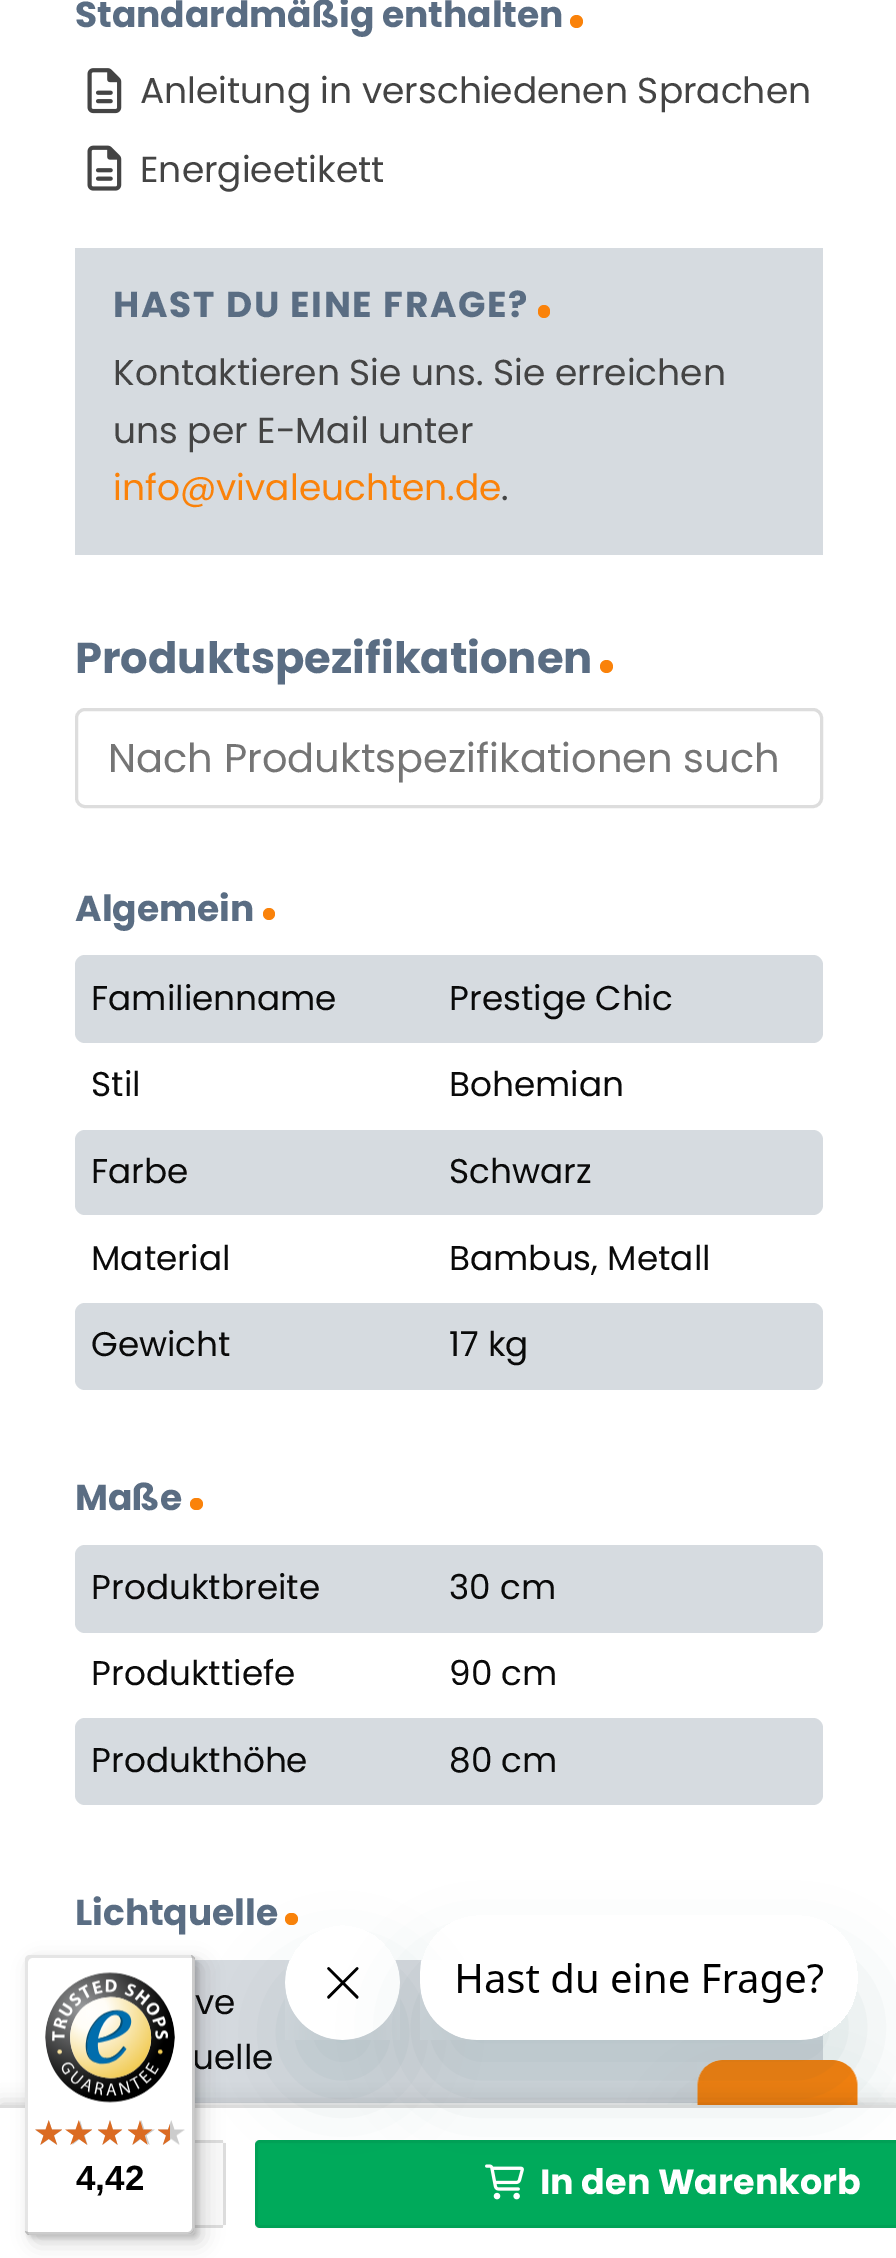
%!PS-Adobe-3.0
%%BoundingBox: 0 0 896 2258
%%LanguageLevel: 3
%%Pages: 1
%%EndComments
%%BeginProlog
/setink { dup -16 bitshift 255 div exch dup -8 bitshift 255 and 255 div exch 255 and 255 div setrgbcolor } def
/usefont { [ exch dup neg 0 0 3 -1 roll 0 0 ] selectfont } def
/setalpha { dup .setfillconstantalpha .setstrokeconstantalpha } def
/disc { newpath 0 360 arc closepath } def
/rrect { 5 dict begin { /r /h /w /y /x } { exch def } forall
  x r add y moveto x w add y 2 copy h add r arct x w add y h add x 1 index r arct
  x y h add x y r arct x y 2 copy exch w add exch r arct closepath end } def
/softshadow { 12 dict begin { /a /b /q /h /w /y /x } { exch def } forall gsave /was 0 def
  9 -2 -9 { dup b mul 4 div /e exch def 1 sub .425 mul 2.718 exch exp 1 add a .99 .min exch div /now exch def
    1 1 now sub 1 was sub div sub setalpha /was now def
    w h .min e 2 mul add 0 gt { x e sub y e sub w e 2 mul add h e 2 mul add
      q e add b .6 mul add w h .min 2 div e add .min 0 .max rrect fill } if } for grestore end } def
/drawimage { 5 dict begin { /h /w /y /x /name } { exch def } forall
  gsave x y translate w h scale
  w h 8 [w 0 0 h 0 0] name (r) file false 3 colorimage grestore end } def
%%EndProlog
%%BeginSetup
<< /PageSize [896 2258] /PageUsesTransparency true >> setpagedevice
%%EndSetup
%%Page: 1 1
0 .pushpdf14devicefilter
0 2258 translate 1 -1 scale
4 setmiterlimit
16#FFFFFF setink
0 0 896 2258 rectfill
/Poppins-Bold 36 usefont
16#5A6D83 setink
75 27 moveto (Standardmäßig enthalten) show
16#FA820A setink
576.5 21.5 6.5 disc fill
(img1.raw) 87 68 35 46 drawimage
/Poppins-Regular 36 usefont
16#444444 setink
140 103 moveto (Anleitung in verschiedenen Sprachen) show
(img2.raw) 87 145 35 46 drawimage
140 182 moveto (Energieetikett) show
16#D6DBE0 setink
75 248 748 307 rectfill
/Poppins-Bold 36 usefont
16#5A6D83 setink
113 317 moveto 1.75 0 (HAST DU EINE FRAGE?) ashow
16#FA820A setink
538 305 12 13 6 rrect fill
/Poppins-Regular 36 usefont
16#444444 setink
113 385 moveto (Kontaktieren Sie uns. Sie erreichen) show
113 443 moveto (uns per E-Mail unter) show
16#FA820A setink
113 500 moveto (info@vivaleuchten.de) show
16#444444 setink
501 500 moveto (.) show
/Poppins-Bold 43.25 usefont
16#5A6D83 setink
75 673 moveto (Produktspezifikationen) show
16#FA820A setink
606.5 666.5 6.5 disc fill
16#DDDDDD setink
3 setlinewidth
76.5 709.5 745 97 8.5 rrect stroke
/Poppins-Regular 40 usefont
16#757575 setink
108 772 moveto (Nach Produktspezifikationen such) show
/Poppins-Bold 36 usefont
16#5A6D83 setink
75 921 moveto (Algemein) show
16#FA820A setink
269 914 6 disc fill
16#D6DBE0 setink
75 955 748 88 10 rrect fill
/Poppins-Regular 34.25 usefont
16#0A0A0A setink
[
    [(Familienname) 91 1010]
    [(Prestige Chic) 449 1010]
    [(Stil) 91 1096]
    [(Bohemian) 449 1096]
] { aload pop moveto show } forall
16#D6DBE0 setink
75 1130 748 85 10 rrect fill
16#0A0A0A setink
[
    [(Farbe) 91 1183]
    [(Schwarz) 449 1183]
    [(Material) 91 1270]
    [(Bambus, Metall) 449 1270]
] { aload pop moveto show } forall
16#D6DBE0 setink
75 1303 748 87 10 rrect fill
16#0A0A0A setink
91 1356 moveto (Gewicht) show
449 1356 moveto (17 kg) show
/Poppins-Bold 36 usefont
16#5A6D83 setink
75 1510 moveto (Maße) show
16#FA820A setink
190 1498 13 12 6 rrect fill
16#D6DBE0 setink
75 1545 748 88 10 rrect fill
/Poppins-Regular 34.25 usefont
16#0A0A0A setink
[
    [(Produktbreite) 91 1599]
    [(30 cm) 449 1599]
    [(Produkttiefe) 91 1685]
    [(90 cm) 449 1685]
] { aload pop moveto show } forall
16#D6DBE0 setink
75 1718 748 87 10 rrect fill
16#0A0A0A setink
91 1772 moveto (Produkthöhe) show
449 1772 moveto (80 cm) show
/Poppins-Bold 36 usefont
16#5A6D83 setink
75 1925 moveto (Lichtquelle) show
16#FA820A setink
285 1913 13 12 6 rrect fill
16#D6DBE0 setink
195 1960 628 143 rectfill
/Poppins-Regular 34.25 usefont
16#0A0A0A setink
195 2014 moveto (ve) show
192 2069 moveto (uelle) show
16#17494D setink
698 2110 160 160 25 37.5 0.15 softshadow
(img17.raw) 697 2060 161 45 drawimage
16#000000 setink
0 2105 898 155 0 10 0.2 softshadow
16#FFFFFF setink
0 2108 896 150 rectfill
16#DDDDDD setink
0 2105 896 3 rectfill
16#F9F9F9 setink
165 2140 moveto 220 2140 lineto 223 2140 225 2142 225 2145 curveto 225 2223 lineto 225 2226 223 2228 220 2228 curveto 165 2228 lineto closepath fill
[
    [195 2140 28 3 16#DDDDDD]
    [223 2143 3 82 16#DDDDDD]
    [195 2225 28 3 16#DDDDDD]
] { aload pop setink rectfill } forall
16#00AA5B setink
255 2140 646 88 5 rrect fill
0.05 setalpha
16#000000 setink
256.5 2141.5 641 85 rectstroke
1 setalpha
(img3.raw) 485 2164 39 36 drawimage
/Poppins-Bold 35 usefont
16#FFFFFF setink
540 2194 moveto (In den Warenkorb) show
16#000000 setink
33 1963 170 280 5 10 0.15 softshadow
28 1958 170 280 5 2.5 0.15 softshadow
gsave
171 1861 moveto 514 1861 lineto 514 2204 lineto 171 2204 lineto closepath 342.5 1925 moveto 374.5 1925 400 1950.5 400 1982.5 curveto 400 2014.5 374.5 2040 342.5 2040 curveto 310.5 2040 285 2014.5 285 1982.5 curveto 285 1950.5 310.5 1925 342.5 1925 curveto closepath eoclip newpath
16#17494D setink
285 1975 115 115 57.5 37.5 0.15 softshadow
grestore
16#FFFFFF setink
25 1955 170 280 5 rrect fill
0.1 setalpha
16#000000 setink
32 1958 moveto 192 1958 lineto 195 1959 lineto 194 1956 192 1955 190 1955 curveto 30 1955 lineto 27 1955 25 1957 25 1960 curveto 25 2230 lineto 25 2232 26 2234 29 2235 curveto 28 2232 lineto 28 1962 lineto 28 1960 30 1958 32 1958 curveto closepath fill
0.2 setalpha
25 2231 moveto 26 2234 28 2235 30 2235 curveto 190 2235 lineto 193 2235 195 2233 195 2230 curveto 195 1960 lineto 195 1958 194 1956 191 1955 curveto 192 1958 lineto 192 2228 lineto 192 2230 190 2232 188 2232 curveto 28 2232 lineto closepath fill
16#323232 setink
26 2233 moveto 27 2234 28 2235 30 2235 curveto 190 2235 lineto 193 2235 195 2233 195 2230 curveto 195 1960 lineto 195 1958 194 1957 193 1956 curveto 194 1958 lineto 194 2228 lineto 194 2231 191 2234 188 2234 curveto 28 2234 lineto closepath fill
0.3 setalpha
16#FFFFFF setink
26 2233 moveto 27 2234 29 2235 30 2235 curveto 190 2235 lineto 193 2235 195 2233 195 2230 curveto 195 1960 lineto 195 1959 194 1957 193 1956 curveto 194 1959 lineto 194 2229 lineto 194 2232 192 2234 189 2234 curveto 29 2234 lineto closepath fill
1 setalpha
(img4.raw) 45 1972 130 131 drawimage
(img5.raw) 35 2120 27 25 drawimage
(img6.raw) 68 2120 24 25 drawimage
(img7.raw) 98 2120 24 25 drawimage
(img8.raw) 128 2120 27 25 drawimage
(img9.raw) 158 2120 27 25 drawimage
(img10.raw) 35 2120 27 25 drawimage
(img11.raw) 65 2120 27 25 drawimage
(img12.raw) 98 2120 25 25 drawimage
(img13.raw) 128 2120 25 25 drawimage
(img14.raw) 158 2124 12 21 drawimage
/LiberationSans-Bold 35 usefont
16#000000 setink
76 2190 moveto (4,42) show
(img16.raw) 285 1960 115 80 drawimage
gsave
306 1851 moveto 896 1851 lineto 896 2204 lineto 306 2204 lineto closepath 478 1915 moveto 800 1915 lineto 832 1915 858 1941 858 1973 curveto 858 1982 lineto 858 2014 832 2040 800 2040 curveto 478 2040 lineto 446 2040 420 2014 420 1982 curveto 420 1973 lineto 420 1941 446 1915 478 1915 curveto closepath eoclip newpath
16#17494D setink
420 1965 438 125 58 37.5 0.15 softshadow
grestore
(img15.raw) 420 1960 403 80 drawimage
.poppdf14devicefilter showpage
%%EOF
